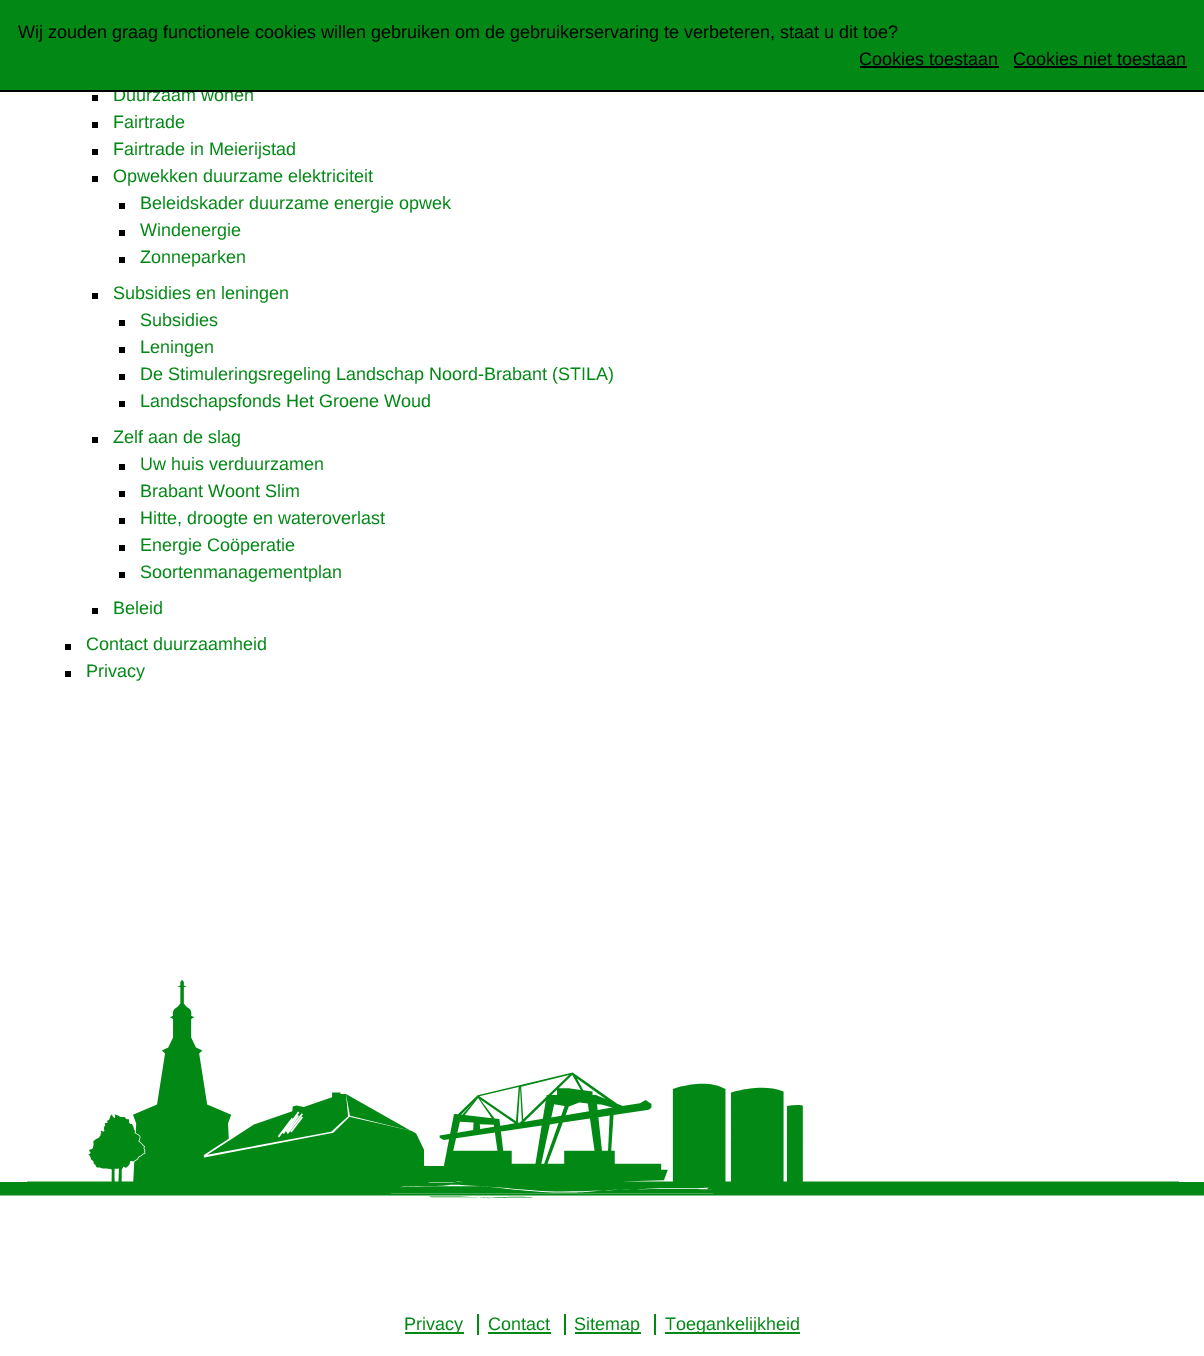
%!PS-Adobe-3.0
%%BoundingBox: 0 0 1204 1356
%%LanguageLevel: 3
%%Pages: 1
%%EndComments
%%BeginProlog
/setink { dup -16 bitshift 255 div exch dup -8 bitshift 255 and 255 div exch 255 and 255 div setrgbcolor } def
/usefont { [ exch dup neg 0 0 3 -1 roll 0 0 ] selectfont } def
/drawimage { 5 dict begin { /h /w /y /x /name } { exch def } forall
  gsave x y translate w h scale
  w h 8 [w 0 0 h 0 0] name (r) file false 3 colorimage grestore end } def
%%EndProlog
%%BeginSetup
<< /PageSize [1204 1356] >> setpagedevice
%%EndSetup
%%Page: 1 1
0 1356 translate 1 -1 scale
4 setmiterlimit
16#FFFFFF setink
0 0 1204 1356 rectfill
16#028814 setink
0 0 1204 90 rectfill
/LiberationSans-Regular 18 usefont
113 101 moveto (Duurzaam wonen) show
16#000000 setink
0 90 1204 2 rectfill
18 38 moveto (Wij zouden graag functionele cookies willen gebruiken om de gebruikerservaring te verbeteren, staat u dit toe?) show
859 65 moveto (Cookies toestaan) show
860 66 139 2 rectfill
1013 65 moveto (Cookies niet toestaan) show
[
    [1014 66 173 2 16#000000]
    [92 95 6 6 16#000000]
    [92 122 6 6 16#000000]
] { aload pop setink rectfill } forall
16#028814 setink
113 128 moveto (Fairtrade) show
16#000000 setink
92 149 6 6 rectfill
16#028814 setink
113 155 moveto (Fairtrade in Meierijstad) show
16#000000 setink
92 176 6 6 rectfill
16#028814 setink
113 182 moveto (Opwekken duurzame elektriciteit) show
16#000000 setink
119 203 6 6 rectfill
16#028814 setink
140 209 moveto (Beleidskader duurzame energie opwek) show
16#000000 setink
119 230 6 6 rectfill
16#028814 setink
140 236 moveto (Windenergie) show
16#000000 setink
119 257 6 6 rectfill
16#028814 setink
140 263 moveto (Zonneparken) show
16#000000 setink
92 293 6 6 rectfill
16#028814 setink
113 299 moveto (Subsidies en leningen) show
16#000000 setink
119 320 6 6 rectfill
16#028814 setink
140 326 moveto (Subsidies) show
16#000000 setink
119 347 6 6 rectfill
16#028814 setink
140 353 moveto (Leningen) show
16#000000 setink
119 374 6 6 rectfill
16#028814 setink
140 380 moveto (De Stimuleringsregeling Landschap Noord-Brabant \(STILA\)) show
16#000000 setink
119 401 6 6 rectfill
16#028814 setink
140 407 moveto (Landschapsfonds Het Groene Woud) show
16#000000 setink
92 437 6 6 rectfill
16#028814 setink
113 443 moveto (Zelf aan de slag) show
16#000000 setink
119 464 6 6 rectfill
16#028814 setink
140 470 moveto (Uw huis verduurzamen) show
16#000000 setink
119 491 6 6 rectfill
16#028814 setink
140 497 moveto (Brabant Woont Slim) show
16#000000 setink
119 518 6 6 rectfill
16#028814 setink
140 524 moveto (Hitte, droogte en wateroverlast) show
16#000000 setink
119 545 6 6 rectfill
16#028814 setink
140 551 moveto (Energie Coöperatie) show
16#000000 setink
119 572 6 6 rectfill
16#028814 setink
140 578 moveto (Soortenmanagementplan) show
16#000000 setink
92 608 6 6 rectfill
16#028814 setink
113 614 moveto (Beleid) show
16#000000 setink
65 644 6 6 rectfill
16#028814 setink
86 650 moveto (Contact duurzaamheid) show
16#000000 setink
65 671 6 6 rectfill
16#028814 setink
86 677 moveto (Privacy) show
(img1.raw) 0 979 1204 220 drawimage
405 1332 59 2 rectfill
404 1330 moveto (Privacy) show
477 1314 2 21 rectfill
488 1330 moveto (Contact) show
[
    [564 1314 2 21 16#028814]
    [488 1332 63 2 16#028814]
    [575 1332 66 2 16#028814]
] { aload pop setink rectfill } forall
574 1330 moveto (Sitemap) show
654 1314 2 21 rectfill
665 1332 135 2 rectfill
665 1330 moveto (Toegankelijkheid) show
showpage
%%EOF
